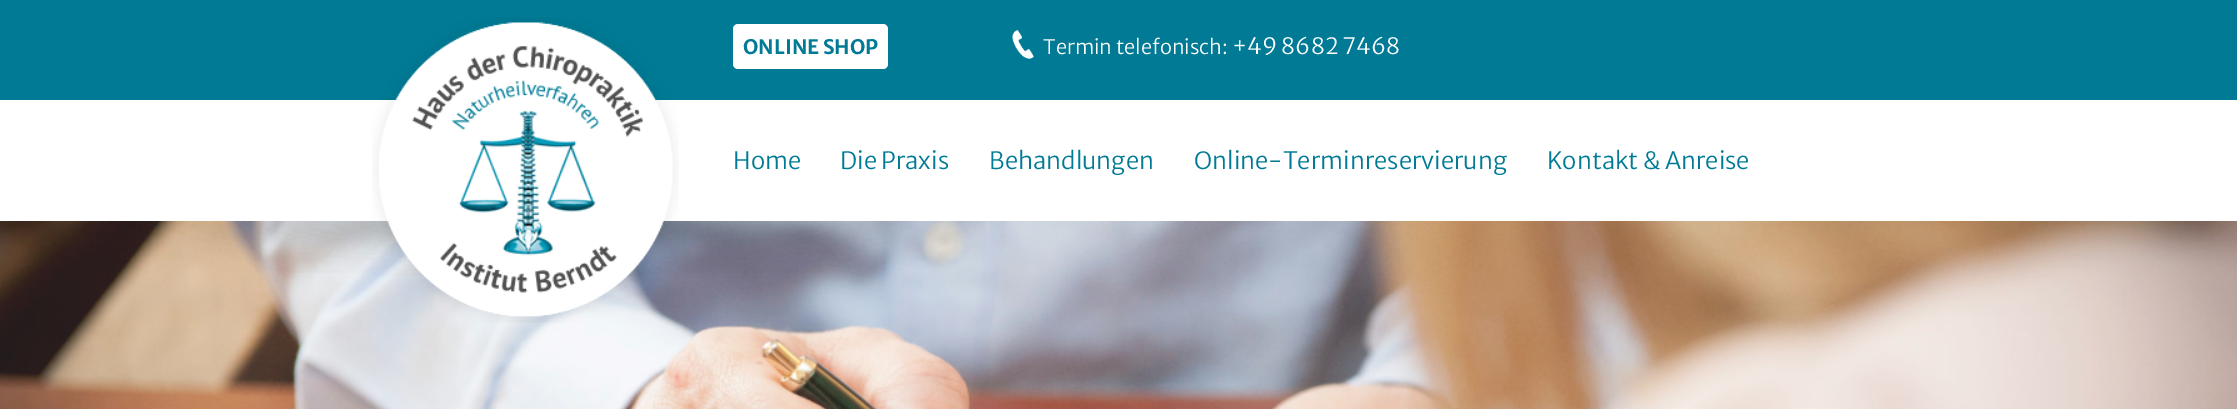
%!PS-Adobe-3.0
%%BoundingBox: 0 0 2237 409
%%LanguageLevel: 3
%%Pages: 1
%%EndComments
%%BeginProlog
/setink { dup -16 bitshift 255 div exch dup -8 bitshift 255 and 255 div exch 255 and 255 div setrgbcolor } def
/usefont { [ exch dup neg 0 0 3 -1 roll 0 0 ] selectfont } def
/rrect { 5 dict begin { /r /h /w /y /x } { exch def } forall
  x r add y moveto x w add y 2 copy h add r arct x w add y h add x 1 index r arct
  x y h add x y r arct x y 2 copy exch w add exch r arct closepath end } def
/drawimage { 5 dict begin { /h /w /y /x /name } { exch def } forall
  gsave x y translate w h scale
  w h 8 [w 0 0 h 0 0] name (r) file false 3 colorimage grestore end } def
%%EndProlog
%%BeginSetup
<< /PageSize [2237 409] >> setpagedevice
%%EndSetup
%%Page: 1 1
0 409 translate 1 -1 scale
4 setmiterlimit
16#FFFFFF setink
0 0 2237 409 rectfill
16#007A95 setink
0 0 2237 100 rectfill
(img3.raw) 0 221 2237 188 drawimage
(img4.raw) 156 221 830 52 drawimage
(img1.raw) 372 17 307 306 drawimage
16#FFFFFF setink
733 24 155 45 5 rrect fill
/MerriweatherSans-Bold 20 usefont
16#007A95 setink
743 54 moveto (ONLINE SHOP) show
(img2.raw) 1012 30 22 29 drawimage
/MerriweatherSans-Light 20 usefont
16#FFFFFF setink
1043 54 moveto (Termin telefonisch:) show
/MerriweatherSans-Light 22.5 usefont
1232 54 moveto (+49 8682 7468) show
/MerriweatherSans-Light 23.75 usefont
16#007A95 setink
[
    [(Home) 733 169]
    [(Die Praxis) 840 169]
    [(Behandlungen) 989 169]
    [(Online-Terminreservierung) 1194 169]
    [(Kontakt & Anreise) 1547 169]
] { aload pop moveto show } forall
showpage
%%EOF
